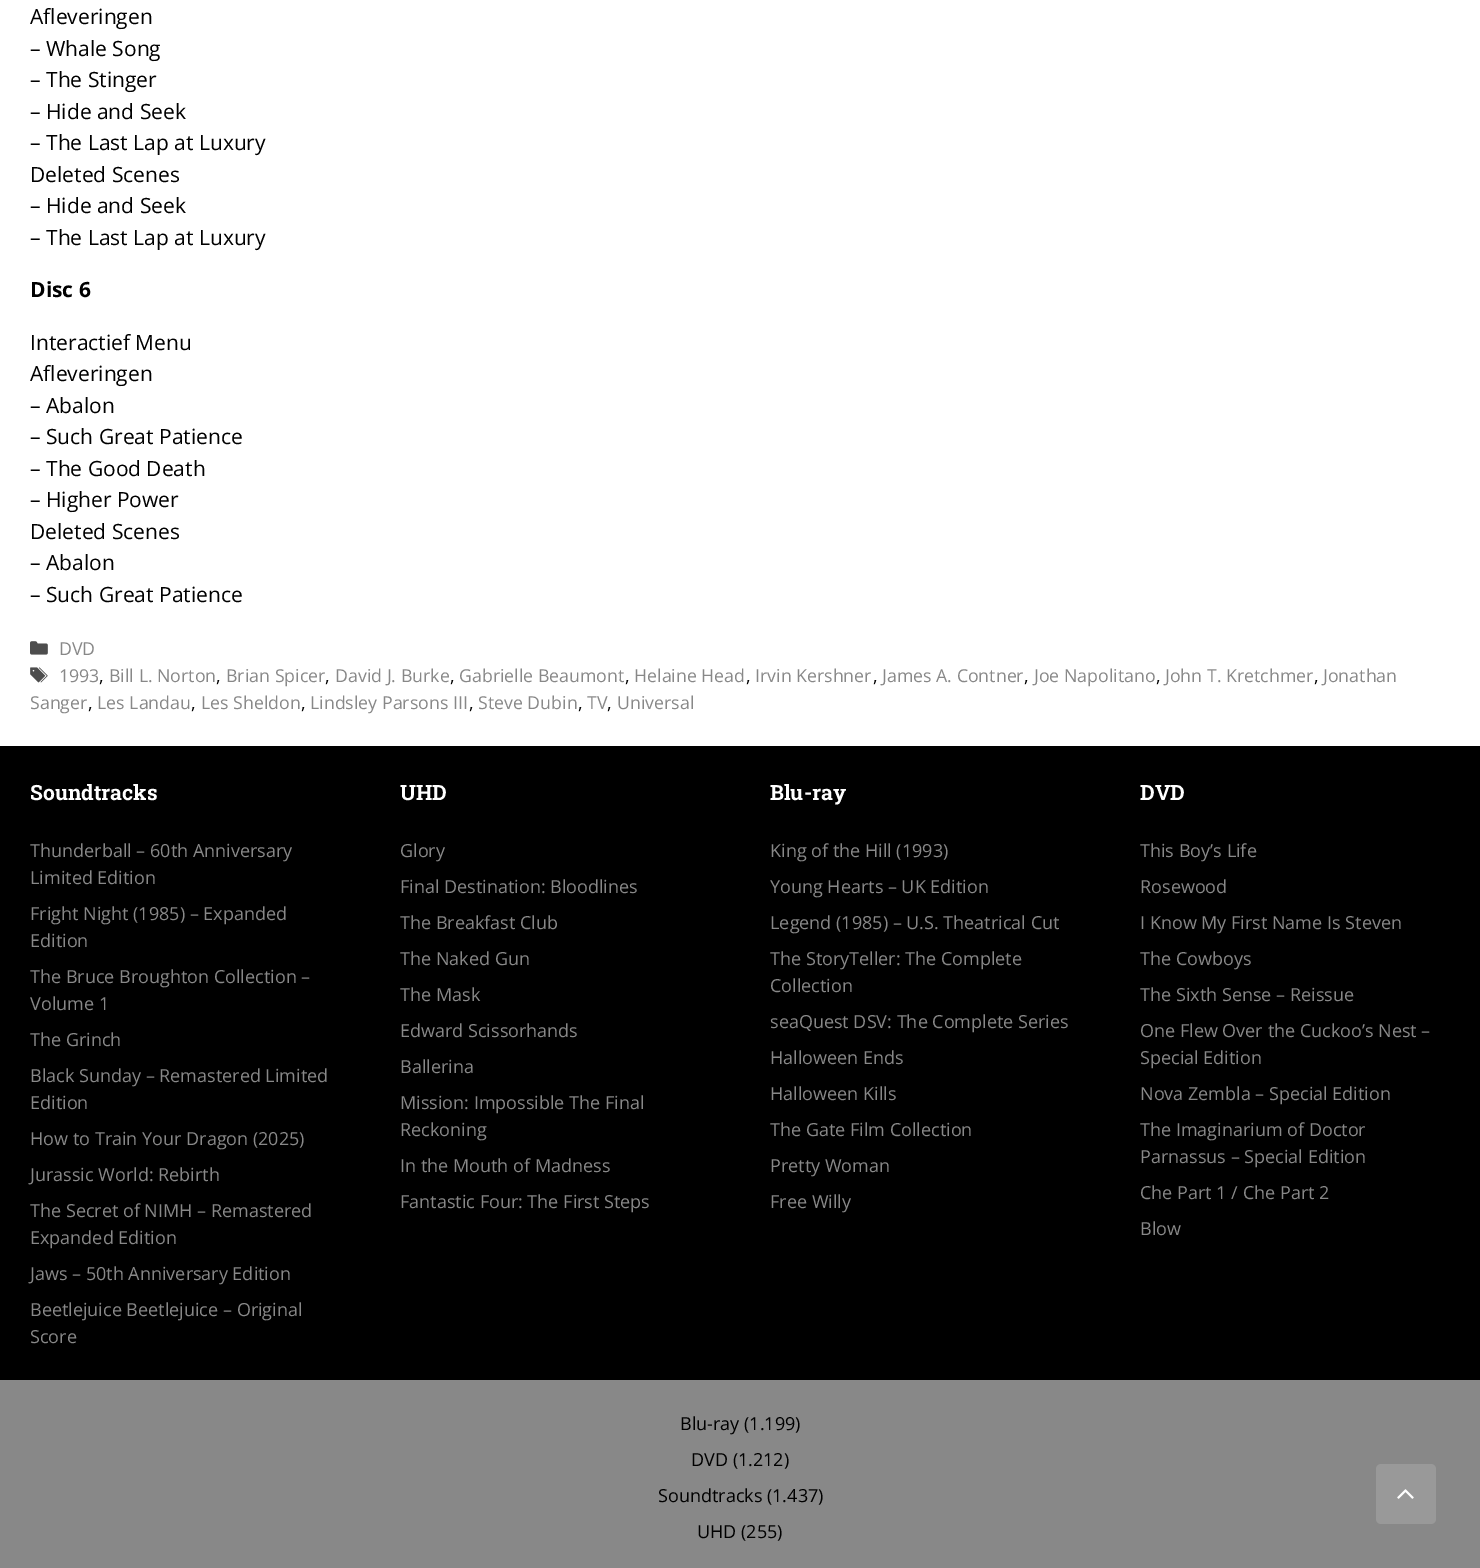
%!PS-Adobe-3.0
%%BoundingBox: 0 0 1480 1568
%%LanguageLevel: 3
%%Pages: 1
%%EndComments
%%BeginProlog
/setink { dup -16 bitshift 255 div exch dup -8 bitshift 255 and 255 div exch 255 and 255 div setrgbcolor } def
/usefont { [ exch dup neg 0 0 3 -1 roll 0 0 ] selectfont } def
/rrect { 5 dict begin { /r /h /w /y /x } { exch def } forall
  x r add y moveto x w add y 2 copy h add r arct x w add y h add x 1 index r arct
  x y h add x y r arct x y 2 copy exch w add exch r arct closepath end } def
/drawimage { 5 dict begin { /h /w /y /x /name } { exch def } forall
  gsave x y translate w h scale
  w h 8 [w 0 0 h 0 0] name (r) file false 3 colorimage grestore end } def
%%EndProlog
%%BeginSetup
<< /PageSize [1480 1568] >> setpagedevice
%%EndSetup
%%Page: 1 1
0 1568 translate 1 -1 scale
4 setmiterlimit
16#FFFFFF setink
0 0 1480 1568 rectfill
/OpenSans-Regular 21 usefont
16#000000 setink
[
    [(Afleveringen) 30 24]
    [(– Whale Song) 30 56]
    [(– The Stinger) 30 87]
    [(– Hide and Seek) 30 119]
    [(– The Last Lap at Luxury) 30 150]
    [(Deleted Scenes) 30 182]
    [(– Hide and Seek) 30 213]
    [(– The Last Lap at Luxury) 30 245]
] { aload pop moveto show } forall
/OpenSans-Bold 21 usefont
30 297 moveto (Disc 6) show
/OpenSans-Regular 21 usefont
[
    [(Interactief Menu) 30 350]
    [(Afleveringen) 30 381]
    [(– Abalon) 30 413]
    [(– Such Great Patience) 30 444]
    [(– The Good Death) 30 476]
    [(– Higher Power) 30 507]
    [(Deleted Scenes) 30 539]
    [(– Abalon) 30 570]
    [(– Such Great Patience) 30 602]
] { aload pop moveto show } forall
(img1.raw) 30 641 18 14 drawimage
/OpenSans-Regular 17.75 usefont
16#888888 setink
59 655 moveto (DVD) show
(img2.raw) 30 667 18 16 drawimage
59 682 moveto (1993) show
16#000000 setink
99 682 moveto (,) show
16#888888 setink
109 682 moveto (Bill L. Norton) show
16#000000 setink
216 682 moveto (,) show
16#888888 setink
226 682 moveto (Brian Spicer) show
16#000000 setink
325 682 moveto (,) show
16#888888 setink
335 682 moveto (David J. Burke) show
16#000000 setink
450 682 moveto (,) show
16#888888 setink
459 682 moveto (Gabrielle Beaumont) show
16#000000 setink
625 682 moveto (,) show
16#888888 setink
634 682 moveto (Helaine Head) show
16#000000 setink
746 682 moveto (,) show
16#888888 setink
755 682 moveto (Irvin Kershner) show
16#000000 setink
873 682 moveto (,) show
16#888888 setink
882 682 moveto (James A. Contner) show
16#000000 setink
1024 682 moveto (,) show
16#888888 setink
1034 682 moveto (Joe Napolitano) show
16#000000 setink
1156 682 moveto (,) show
16#888888 setink
1165 682 moveto (John T. Kretchmer) show
16#000000 setink
1314 682 moveto (,) show
16#888888 setink
1323 682 moveto (Jonathan) show
30 709 moveto (Sanger) show
16#000000 setink
88 709 moveto (,) show
16#888888 setink
97 709 moveto (Les Landau) show
16#000000 setink
191 709 moveto (,) show
16#888888 setink
201 709 moveto (Les Sheldon) show
16#000000 setink
301 709 moveto (,) show
16#888888 setink
310 709 moveto (Lindsley Parsons III) show
16#000000 setink
469 709 moveto (,) show
16#888888 setink
478 709 moveto (Steve Dubin) show
16#000000 setink
578 709 moveto (,) show
16#888888 setink
587 709 moveto (TV) show
16#000000 setink
607 709 moveto (,) show
16#888888 setink
617 709 moveto (Universal) show
16#000000 setink
0 746 1480 634 rectfill
/RobotoSlab-Bold 21 usefont
16#FFFFFF setink
30 800 moveto (Soundtracks) show
/OpenSans-Regular 18 usefont
16#888888 setink
[
    [(Thunderball – 60th Anniversary) 30 857]
    [(Limited Edition) 30 884]
    [(Fright Night \(1985\) – Expanded) 30 920]
    [(Edition) 30 947]
    [(The Bruce Broughton Collection –) 30 983]
    [(Volume 1) 30 1010]
    [(The Grinch) 30 1046]
    [(Black Sunday – Remastered Limited) 30 1082]
    [(Edition) 30 1109]
    [(How to Train Your Dragon \(2025\)) 30 1145]
    [(Jurassic World: Rebirth) 30 1181]
    [(The Secret of NIMH – Remastered) 30 1217]
    [(Expanded Edition) 30 1244]
    [(Jaws – 50th Anniversary Edition) 30 1280]
    [(Beetlejuice Beetlejuice – Original) 30 1316]
    [(Score) 30 1343]
] { aload pop moveto show } forall
/RobotoSlab-Bold 21 usefont
16#FFFFFF setink
400 800 moveto (UHD) show
/OpenSans-Regular 18 usefont
16#888888 setink
[
    [(Glory) 400 857]
    [(Final Destination: Bloodlines) 400 893]
    [(The Breakfast Club) 400 929]
    [(The Naked Gun) 400 965]
    [(The Mask) 400 1001]
    [(Edward Scissorhands) 400 1037]
    [(Ballerina) 400 1073]
    [(Mission: Impossible The Final) 400 1109]
    [(Reckoning) 400 1136]
    [(In the Mouth of Madness) 400 1172]
    [(Fantastic Four: The First Steps) 400 1208]
] { aload pop moveto show } forall
/RobotoSlab-Bold 21 usefont
16#FFFFFF setink
770 800 moveto (Blu-ray) show
/OpenSans-Regular 18 usefont
16#888888 setink
[
    [(King of the Hill \(1993\)) 770 857]
    [(Young Hearts – UK Edition) 770 893]
    [(Legend \(1985\) – U.S. Theatrical Cut) 770 929]
    [(The StoryTeller: The Complete) 770 965]
    [(Collection) 770 992]
    [(seaQuest DSV: The Complete Series) 770 1028]
    [(Halloween Ends) 770 1064]
    [(Halloween Kills) 770 1100]
    [(The Gate Film Collection) 770 1136]
    [(Pretty Woman) 770 1172]
    [(Free Willy) 770 1208]
] { aload pop moveto show } forall
/RobotoSlab-Bold 21 usefont
16#FFFFFF setink
1140 800 moveto (DVD) show
/OpenSans-Regular 18 usefont
16#888888 setink
[
    [(This Boy’s Life) 1140 857]
    [(Rosewood) 1140 893]
    [(I Know My First Name Is Steven) 1140 929]
    [(The Cowboys) 1140 965]
    [(The Sixth Sense – Reissue) 1140 1001]
    [(One Flew Over the Cuckoo’s Nest –) 1140 1037]
    [(Special Edition) 1140 1064]
    [(Nova Zembla – Special Edition) 1140 1100]
    [(The Imaginarium of Doctor) 1140 1136]
    [(Parnassus – Special Edition) 1140 1163]
    [(Che Part 1 / Che Part 2) 1140 1199]
    [(Blow) 1140 1235]
] { aload pop moveto show } forall
0 1380 1480 188 rectfill
16#000000 setink
[
    [(Blu-ray \(1.199\)) 680 1430]
    [(DVD \(1.212\)) 691 1466]
    [(Soundtracks \(1.437\)) 658 1502]
    [(UHD \(255\)) 697 1538]
] { aload pop moveto show } forall
16#999999 setink
1376 1464 60 60 5 rrect fill
(img3.raw) 1397 1489 17 10 drawimage
showpage
%%EOF
